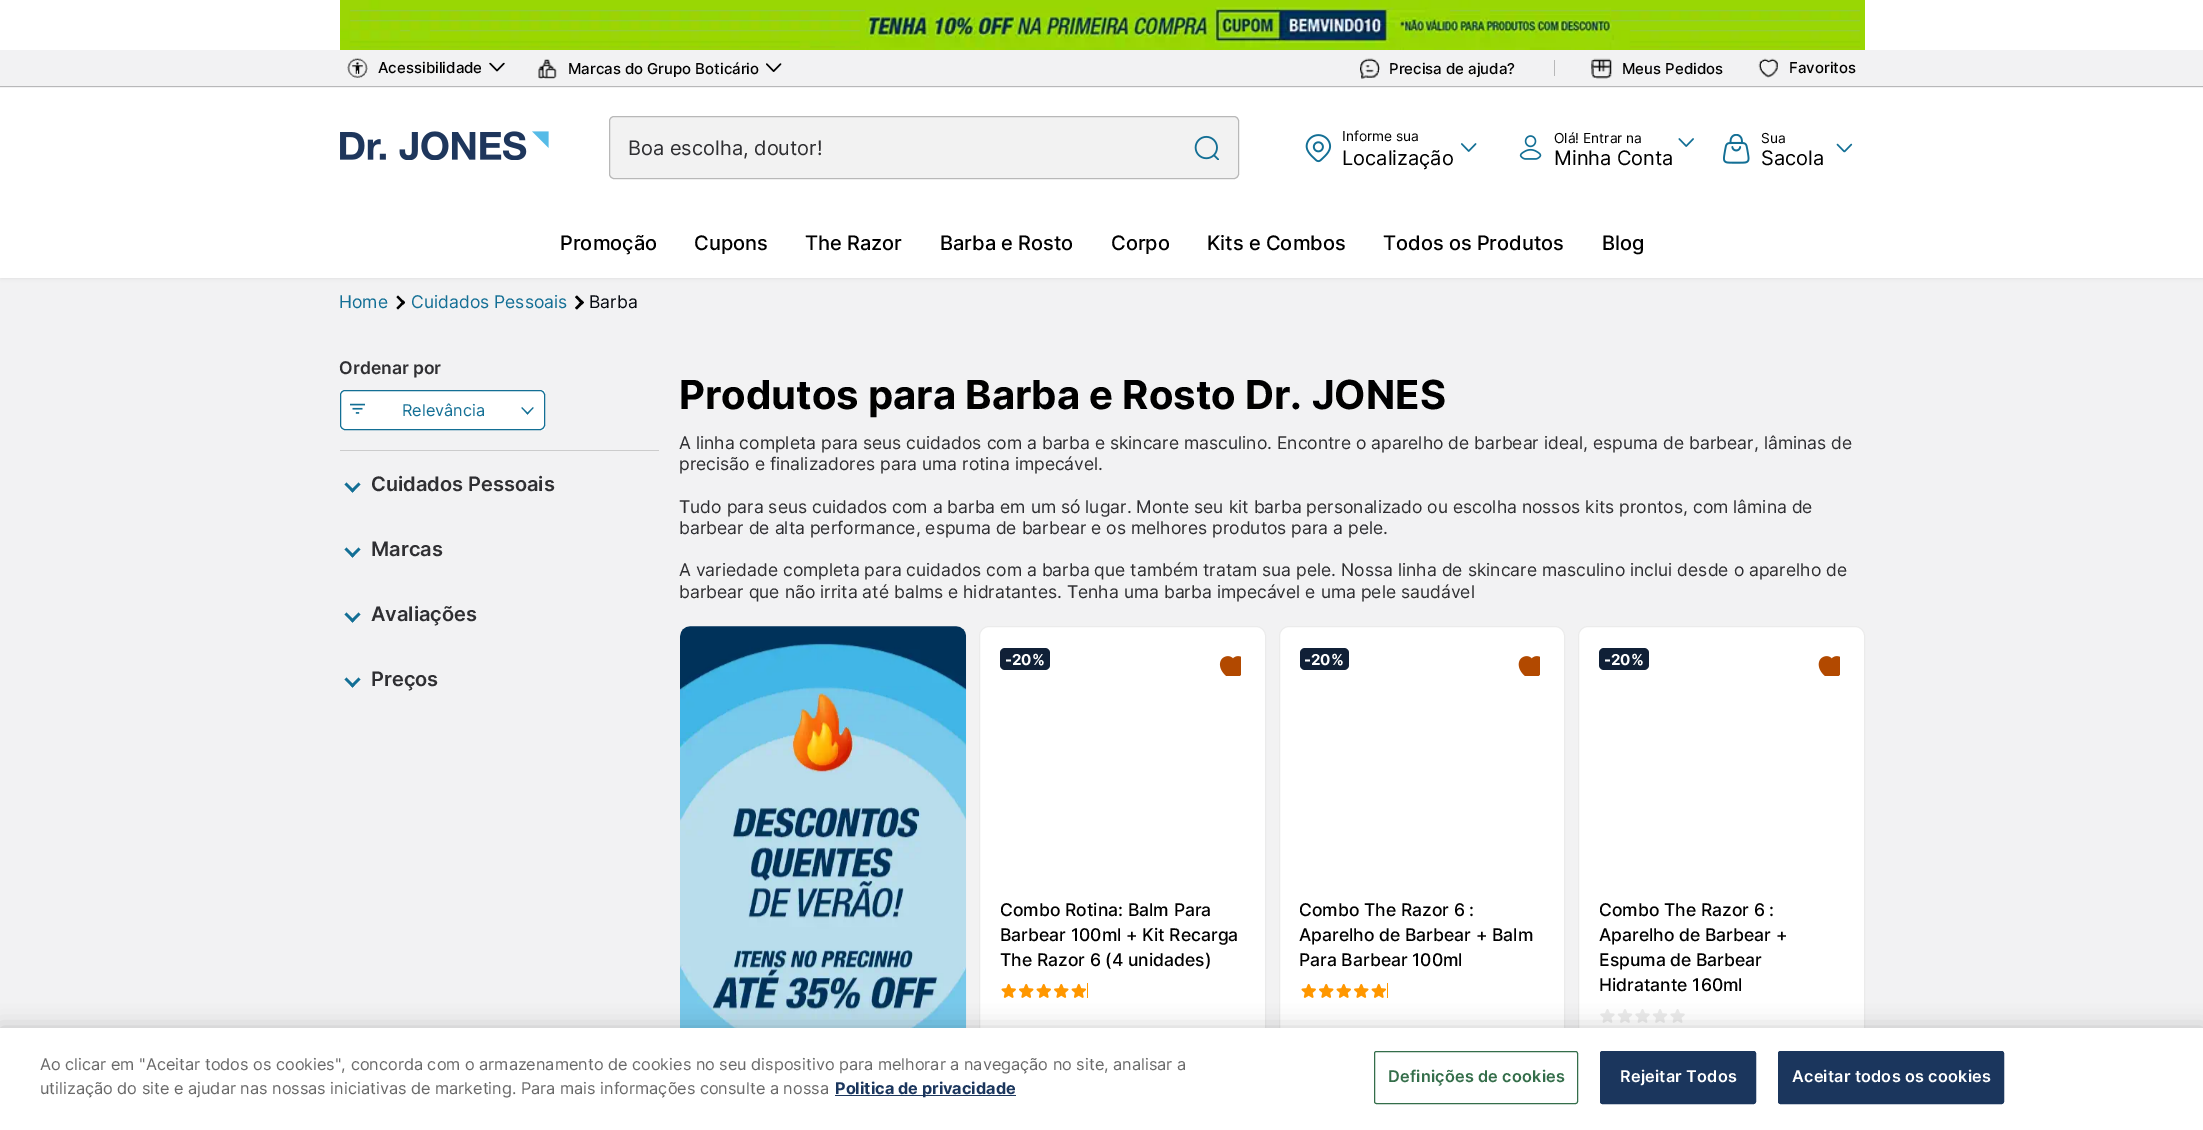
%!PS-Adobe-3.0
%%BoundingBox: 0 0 2203 1130
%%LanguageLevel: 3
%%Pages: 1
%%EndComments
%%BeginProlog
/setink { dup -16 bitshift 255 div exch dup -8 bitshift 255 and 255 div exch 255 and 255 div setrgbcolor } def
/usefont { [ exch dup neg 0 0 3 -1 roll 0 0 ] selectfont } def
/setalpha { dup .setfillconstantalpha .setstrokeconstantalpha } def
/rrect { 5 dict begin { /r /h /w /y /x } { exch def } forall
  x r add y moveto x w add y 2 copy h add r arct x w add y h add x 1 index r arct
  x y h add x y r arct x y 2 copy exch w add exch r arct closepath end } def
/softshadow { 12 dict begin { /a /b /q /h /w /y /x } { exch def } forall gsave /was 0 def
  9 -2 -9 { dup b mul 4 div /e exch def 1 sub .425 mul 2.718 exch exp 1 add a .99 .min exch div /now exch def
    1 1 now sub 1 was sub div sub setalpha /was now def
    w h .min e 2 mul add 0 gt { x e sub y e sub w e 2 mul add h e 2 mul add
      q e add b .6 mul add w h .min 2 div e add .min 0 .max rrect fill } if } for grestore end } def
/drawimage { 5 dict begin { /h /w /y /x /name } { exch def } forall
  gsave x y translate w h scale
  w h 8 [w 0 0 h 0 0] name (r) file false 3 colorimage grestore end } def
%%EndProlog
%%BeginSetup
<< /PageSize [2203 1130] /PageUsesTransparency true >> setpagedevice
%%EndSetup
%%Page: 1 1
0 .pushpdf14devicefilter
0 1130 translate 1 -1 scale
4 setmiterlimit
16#F2F2F3 setink
0 0 2203 1130 rectfill
16#FFFFFF setink
0 0 2203 50 rectfill
(img1.raw) 340 0 1525 50 drawimage
16#B8B8B9 setink
0 86 2203 1 rectfill
(img2.raw) 347 58 21 20 drawimage
/Inter-Medium 15 usefont
16#000000 setink
378 73 moveto (Acessibilidade) show
(img3.raw) 489 62 16 10 drawimage
(img4.raw) 538 59 19 20 drawimage
568 74 moveto (Marcas do Grupo Boticário) show
(img5.raw) 766 63 16 9 drawimage
(img6.raw) 1360 58 20 21 drawimage
1389 74 moveto (Precisa de ajuda?) show
16#B8B8B9 setink
1554 60 1 16 rectfill
(img7.raw) 1591 58 21 21 drawimage
16#000000 setink
1622 74 moveto (Meus Pedidos) show
(img8.raw) 1758 58 20 20 drawimage
1789 73 moveto (Favoritos) show
1 208 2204 70 0 2 0.1 softshadow
16#FFFFFF setink
0 88 2203 190 rectfill
(img9.raw) 340 131 209 29 drawimage
16#F2F2F2 setink
609 116 630 63 5 rrect fill
0.24 setalpha
16#000000 setink
609.5 116.5 629 62 4.5 rrect stroke
/Inter-Regular 20 usefont
1 setalpha
16#2F2F32 setink
628 155 moveto (Boa escolha, doutor!) show
(img10.raw) 1194 135 25 25 drawimage
(img11.raw) 1305 134 27 29 drawimage
/Inter-Regular 13.75 usefont
16#000000 setink
1342 141 moveto (Informe sua) show
/Inter-Regular 20 usefont
1342 165 moveto (Localização) show
(img12.raw) 1461 143 16 9 drawimage
(img13.raw) 1519 135 23 25 drawimage
/Inter-Regular 13.75 usefont
1554 143 moveto (Olá! Entrar na) show
/Inter-Regular 20 usefont
1554 165 moveto (Minha Conta) show
(img14.raw) 1678 138 16 9 drawimage
(img15.raw) 1723 134 27 30 drawimage
/Inter-Regular 13.75 usefont
1761 143 moveto (Sua) show
/Inter-Regular 20 usefont
1761 165 moveto (Sacola) show
(img16.raw) 1836 143 17 10 drawimage
/Inter-Medium 20 usefont
[
    [(Promoção) 560 250]
    [(Cupons) 694 250]
    [(The Razor) 805 250]
    [(Barba e Rosto) 940 250]
    [(Corpo) 1111 250]
    [(Kits e Combos) 1207 250]
    [(Todos os Produtos) 1383 250]
    [(Blog) 1602 250]
] { aload pop moveto show } forall
/Inter-Regular 17.5 usefont
16#136F95 setink
339 308 moveto (Home) show
16#000000 setink
403.5 304.5 moveto 396.5 297 lineto 398 295.5 lineto 405 302.5 lineto closepath fill
398 309.5 moveto 396.5 308 lineto 403.5 300.5 lineto 405 302.5 lineto closepath fill
16#136F95 setink
411 308 moveto (Cuidados Pessoais) show
16#000000 setink
582 304.5 moveto 575 297 lineto 577 295.5 lineto 584 302.5 lineto closepath fill
577 309.5 moveto 575 308 lineto 582 300.5 lineto 584 302.5 lineto closepath fill
16#060A11 setink
589 308 moveto (Barba) show
16#CCCCCC setink
340 450 319 1 rectfill
/Inter-SemiBold 17.5 usefont
16#2F2F32 setink
339 374 moveto (Ordenar por) show
16#FFFFFF setink
340 390 205 40 rectfill
16#136F95 setink
340.5 390.5 204 39 4.5 rrect stroke
(img17.raw) 350 403 15 11 drawimage
/Inter-Regular 16.25 usefont
402 416 moveto (Relevância) show
533.5 408 moveto 527.5 414.5 lineto 526.5 413.5 lineto 533 407 lineto closepath fill
528.5 413.5 moveto 527.5 414.5 lineto 521.5 408 lineto 522 407 lineto closepath fill
360.5 484.5 moveto 352.5 492.5 lineto 350.5 490.5 lineto 358.5 482.5 lineto closepath fill
354.5 490.5 moveto 352.5 492.5 lineto 344.5 484.5 lineto 346.5 482.5 lineto closepath fill
/Inter-SemiBold 20 usefont
16#2F2F32 setink
371 491 moveto (Cuidados Pessoais) show
16#136F95 setink
360.5 549.5 moveto 352.5 557.5 lineto 350.5 555.5 lineto 358.5 547.5 lineto closepath fill
354.5 555.5 moveto 352.5 557.5 lineto 344.5 549.5 lineto 346.5 547.5 lineto closepath fill
16#2F2F32 setink
371 556 moveto (Marcas) show
16#136F95 setink
360.5 614.5 moveto 352.5 622.5 lineto 350.5 620.5 lineto 358.5 612.5 lineto closepath fill
354.5 620.5 moveto 352.5 622.5 lineto 344.5 614.5 lineto 346.5 612.5 lineto closepath fill
16#2F2F32 setink
371 621 moveto (Avaliações) show
16#136F95 setink
360.5 679.5 moveto 352.5 687.5 lineto 350.5 685.5 lineto 358.5 677.5 lineto closepath fill
354.5 685.5 moveto 352.5 687.5 lineto 344.5 679.5 lineto 346.5 677.5 lineto closepath fill
16#2F2F32 setink
371 686 moveto (Preços) show
/Inter-Bold 40 usefont
16#000000 setink
679 409 moveto (Produtos para Barba e Rosto Dr. JONES) show
/Inter-Regular 17.5 usefont
16#2F2F32 setink
[
    [(A linha completa para seus cuidados com a barba e skincare masculino. Encontre o aparelho de barbear ideal, espuma de barbear, lâminas de) 679 449]
    [(precisão e finalizadores para uma rotina impecável.) 679 470]
    [(Tudo para seus cuidados com a barba em um só lugar. Monte seu kit barba personalizado ou escolha nossos kits prontos, com lâmina de) 679 513]
    [(barbear de alta performance, espuma de barbear e os melhores produtos para a pele.) 679 534]
    [(A variedade completa para cuidados com a barba que também tratam sua pele. Nossa linha de skincare masculino inclui desde o aparelho de) 679 576]
    [(barbear que não irrita até balms e hidratantes. Tenha uma barba impecável e uma pele saudável) 679 598]
] { aload pop moveto show } forall
(img18.raw) 680 626 287 402 drawimage
16#FFFFFF setink
979.5 626.5 286 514 9.5 rrect gsave fill grestore
16#EBEBEB setink
stroke
16#102037 setink
1000 648 50 22 5 rrect fill
/Inter-Bold 15 usefont
16#FFFFFF setink
1005 665 moveto (-20%) show
(img19.raw) 1219 656 22 20 drawimage
/Inter-Medium 17.5 usefont
16#000000 setink
[
    [(Combo Rotina: Balm Para) 1000 916]
    [(Barbear 100ml + Kit Recarga) 1000 941]
    [(The Razor 6 \(4 unidades\)) 1000 966]
] { aload pop moveto show } forall
16#FF9700 setink
1000 983 88 15 rectfill
(img20.raw) 1000 983 87 15 drawimage
16#FFFFFF setink
1279.5 626.5 285 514 9.5 rrect gsave fill grestore
16#EBEBEB setink
stroke
16#102037 setink
1300 648 49 22 5 rrect fill
/Inter-Bold 15 usefont
16#FFFFFF setink
1304 665 moveto (-20%) show
(img21.raw) 1518 656 22 20 drawimage
/Inter-Medium 17.5 usefont
16#000000 setink
[
    [(Combo The Razor 6 :) 1299 916]
    [(Aparelho de Barbear + Balm) 1299 941]
    [(Para Barbear 100ml) 1299 966]
] { aload pop moveto show } forall
16#FF9700 setink
1300 983 88 15 rectfill
(img20.raw) 1300 983 87 15 drawimage
16#FFFFFF setink
1578.5 626.5 286 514 9.5 rrect gsave fill grestore
16#EBEBEB setink
stroke
16#102037 setink
1599 648 50 22 5 rrect fill
/Inter-Bold 15 usefont
16#FFFFFF setink
1604 665 moveto (-20%) show
(img21.raw) 1818 656 22 20 drawimage
/Inter-Medium 17.5 usefont
16#000000 setink
[
    [(Combo The Razor 6 :) 1599 916]
    [(Aparelho de Barbear +) 1599 941]
    [(Espuma de Barbear) 1599 966]
    [(Hidratante 160ml) 1599 991]
] { aload pop moveto show } forall
16#EBEBEB setink
1600 1008 85 15 rectfill
(img22.raw) 1599 1008 87 15 drawimage
16#000000 setink
0 1028 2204 102 0 11 0.2 softshadow
16#FFFFFF setink
0 1028 2203 102 rectfill
/Inter-Regular 16.25 usefont
16#696969 setink
40 1070 moveto (Ao clicar em "Aceitar todos os cookies", concorda com o armazenamento de cookies no seu dispositivo para melhorar a navegação no site, analisar a) show
40 1094 moveto (utilização do site e ajudar nas nossas iniciativas de marketing. Para mais informações consulte a nossa) show
16#1B365D setink
835 1095 181 1 rectfill
/Inter-Bold 16.25 usefont
835 1094 moveto (Politica de privacidade) show
16#346E4A setink
1374.5 1051.5 203 52 2 rrect stroke
/Inter-SemiBold 16.25 usefont
1388 1082 moveto 0.2 0 (Definições de cookies) ashow
16#1B365D setink
1600.5 1051.5 155 52 2 rrect gsave fill grestore
stroke
16#FFFFFF setink
1620 1082 moveto 0.2 0 (Rejeitar Todos) ashow
16#1B365D setink
1778.5 1051.5 225 52 2 rrect gsave fill grestore
stroke
16#FFFFFF setink
1792 1082 moveto 0.2 0 (Aceitar todos os cookies) ashow
.poppdf14devicefilter showpage
%%EOF
